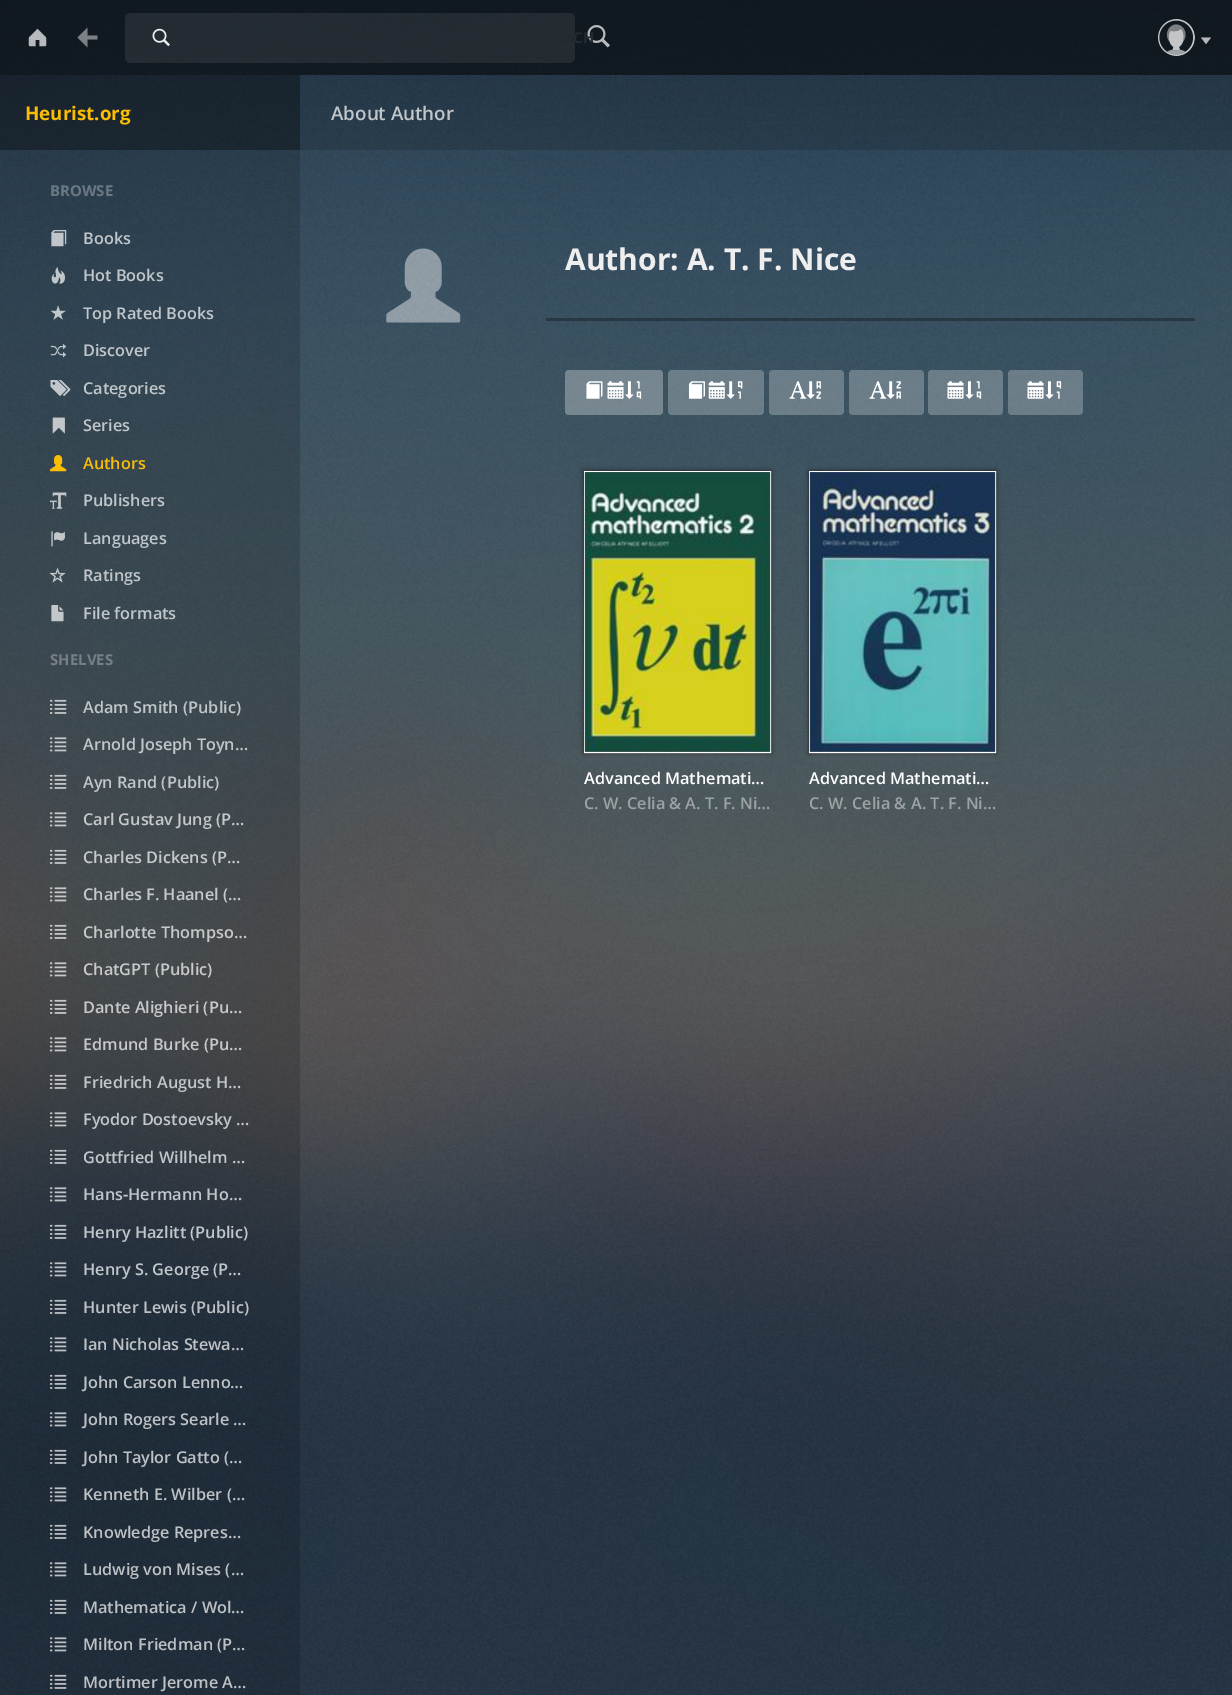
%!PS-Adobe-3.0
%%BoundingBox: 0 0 1232 1695
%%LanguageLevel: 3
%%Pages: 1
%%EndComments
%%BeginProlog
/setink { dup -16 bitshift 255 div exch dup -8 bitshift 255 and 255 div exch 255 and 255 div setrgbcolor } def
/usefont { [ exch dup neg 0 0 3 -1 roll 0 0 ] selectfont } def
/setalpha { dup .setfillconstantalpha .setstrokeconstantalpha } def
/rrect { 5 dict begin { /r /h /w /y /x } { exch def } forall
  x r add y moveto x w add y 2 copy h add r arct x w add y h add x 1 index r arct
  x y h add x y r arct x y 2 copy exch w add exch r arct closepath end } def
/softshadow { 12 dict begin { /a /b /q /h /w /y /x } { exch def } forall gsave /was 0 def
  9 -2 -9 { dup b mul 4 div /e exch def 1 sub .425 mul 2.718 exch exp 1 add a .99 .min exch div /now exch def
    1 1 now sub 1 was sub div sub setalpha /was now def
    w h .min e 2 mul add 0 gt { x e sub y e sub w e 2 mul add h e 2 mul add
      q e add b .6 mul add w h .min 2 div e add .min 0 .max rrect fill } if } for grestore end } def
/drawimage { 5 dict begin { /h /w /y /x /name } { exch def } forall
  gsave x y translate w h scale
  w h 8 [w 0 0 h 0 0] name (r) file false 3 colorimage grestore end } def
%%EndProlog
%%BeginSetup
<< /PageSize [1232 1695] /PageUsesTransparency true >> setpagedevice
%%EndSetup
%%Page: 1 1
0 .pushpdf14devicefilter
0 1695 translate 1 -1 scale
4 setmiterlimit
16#FFFFFF setink
0 0 1232 1695 rectfill
(img5.raw) 0 0 1232 1695 drawimage
(img6.raw) 386 248 75 75 drawimage
(img7.raw) 0 0 1232 1695 drawimage
0.6 setalpha
16#000000 setink
0 0 1232 75 rectfill
1 setalpha
(img1.raw) 28 28 19 19 drawimage
0.45 setalpha
16#FFFFFF setink
77.5 37.5 moveto 87.5 47.5 lineto 87.5 39.5 lineto 97.5 39.5 lineto 97.5 35.5 lineto 87.5 35.5 lineto 87.5 27.5 lineto closepath fill
1 setalpha
(img2.raw) 152 28 18 19 drawimage
0.08 setalpha
125 13 450 50 5 rrect fill
1 setalpha
(img3.raw) 587 25 23 23 drawimage
/OpenSans-Bold 15 usefont
16#232B32 setink
573 43 moveto (CH) show
(img4.raw) 1158 19 37 37 drawimage
0.7 setalpha
16#FFFFFF setink
1201 37.5 moveto 1211 37.5 lineto 1206 44 lineto closepath fill
0.45 setalpha
16#000000 setink
0 75 300 75 rectfill
/OpenSans-Bold 18.75 usefont
1 setalpha
16#F9BE03 setink
25 120 moveto (Heurist.org) show
0.15 setalpha
16#000000 setink
0 150 300 1545 rectfill
300 75 932 75 rectfill
/OpenSans-Bold 15 usefont
1 setalpha
16#6B7882 setink
50 196 moveto (BROWSE) show
(img8.raw) 51 230 16 17 drawimage
/OpenSans-SemiBold 16.25 usefont
16#C0C6CA setink
83 244 moveto (Books) show
(img9.raw) 51 267 14 17 drawimage
83 281 moveto (Hot Books) show
(img10.raw) 50 305 16 15 drawimage
83 319 moveto (Top Rated Books) show
(img11.raw) 50 343 17 15 drawimage
83 356 moveto (Discover) show
(img12.raw) 50 380 21 16 drawimage
83 394 moveto (Categories) show
(img13.raw) 52 417 13 17 drawimage
83 431 moveto (Series) show
(img14.raw) 50 455 17 17 drawimage
16#F9BE03 setink
83 469 moveto (Authors) show
(img15.raw) 50 492 17 17 drawimage
16#C0C6CA setink
83 506 moveto (Publishers) show
(img16.raw) 51 531 14 16 drawimage
83 544 moveto (Languages) show
(img17.raw) 49 568 17 15 drawimage
83 581 moveto (Ratings) show
(img18.raw) 51 605 13 17 drawimage
83 619 moveto (File formats) show
/OpenSans-Bold 15 usefont
16#767F85 setink
50 665 moveto (SHELVES) show
(img19.raw) 50 699 17 15 drawimage
/OpenSans-SemiBold 16.25 usefont
16#C0C6CA setink
83 713 moveto (Adam Smith \(Public\)) show
(img20.raw) 50 737 17 15 drawimage
83 750 moveto (Arnold Joseph Toyn…) show
(img21.raw) 50 774 17 15 drawimage
83 788 moveto (Ayn Rand \(Public\)) show
(img22.raw) 50 812 17 15 drawimage
16#C6C8CA setink
83 825 moveto (Carl Gustav Jung \(P…) show
(img23.raw) 50 849 17 15 drawimage
83 863 moveto (Charles Dickens \(P…) show
(img24.raw) 50 887 17 15 drawimage
83 900 moveto (Charles F. Haanel \(…) show
(img25.raw) 50 924 17 15 drawimage
83 938 moveto (Charlotte Thompso…) show
(img26.raw) 50 962 17 15 drawimage
83 975 moveto (ChatGPT \(Public\)) show
(img27.raw) 50 999 17 15 drawimage
83 1013 moveto (Dante Alighieri \(Pu…) show
(img28.raw) 50 1037 17 15 drawimage
83 1050 moveto (Edmund Burke \(Pu…) show
(img29.raw) 50 1074 17 15 drawimage
16#C0C6CA setink
83 1088 moveto (Friedrich August H…) show
(img30.raw) 50 1112 17 15 drawimage
83 1125 moveto (Fyodor Dostoevsky …) show
(img31.raw) 50 1149 17 15 drawimage
83 1163 moveto (Gottfried Willhelm …) show
(img32.raw) 50 1187 17 15 drawimage
83 1200 moveto (Hans-Hermann Ho…) show
(img33.raw) 50 1224 17 15 drawimage
83 1238 moveto (Henry Hazlitt \(Public\)) show
(img34.raw) 50 1262 17 15 drawimage
83 1275 moveto (Henry S. George \(P…) show
(img35.raw) 50 1299 17 15 drawimage
16#BDC1C4 setink
83 1313 moveto (Hunter Lewis \(Public\)) show
(img36.raw) 50 1337 17 15 drawimage
83 1350 moveto (Ian Nicholas Stewa…) show
(img37.raw) 50 1374 17 15 drawimage
83 1388 moveto (John Carson Lenno…) show
(img38.raw) 50 1412 17 15 drawimage
83 1425 moveto (John Rogers Searle …) show
(img39.raw) 50 1449 17 15 drawimage
83 1463 moveto (John Taylor Gatto \(…) show
(img40.raw) 50 1487 17 15 drawimage
83 1500 moveto (Kenneth E. Wilber \(…) show
(img41.raw) 50 1524 17 15 drawimage
83 1538 moveto (Knowledge Repres…) show
(img42.raw) 50 1562 17 15 drawimage
83 1575 moveto (Ludwig von Mises \(…) show
(img43.raw) 50 1599 17 15 drawimage
83 1613 moveto (Mathematica / Wol…) show
(img44.raw) 50 1637 17 15 drawimage
83 1650 moveto (Milton Friedman \(P…) show
(img45.raw) 50 1674 17 15 drawimage
83 1688 moveto (Mortimer Jerome A…) show
0.3 setalpha
16#000000 setink
546 318 649 3 rectfill
/OpenSans-SemiBold 18.75 usefont
1 setalpha
16#C0C6CA setink
331 120 moveto (About Author) show
/OpenSans-Bold 30 usefont
16#EEEEEE setink
565 270 moveto (Author: A. T. F. Nice) show
0.3 setalpha
16#FFFFFF setink
565 370 98 45 4 rrect fill
1 setalpha
(img46.raw) 586 381 17 18 drawimage
(img47.raw) 607 381 17 18 drawimage
(img48.raw) 625 381 17 18 drawimage
0.25 setalpha
668 370 96 45 4 rrect fill
1 setalpha
(img49.raw) 688 381 17 18 drawimage
(img50.raw) 708 381 17 18 drawimage
(img51.raw) 726 381 17 18 drawimage
0.25 setalpha
769 370 75 45 4 rrect fill
1 setalpha
(img52.raw) 789 381 18 18 drawimage
(img53.raw) 806 381 15 18 drawimage
0.25 setalpha
849 370 75 45 4 rrect fill
1 setalpha
(img54.raw) 869 381 18 18 drawimage
(img55.raw) 886 381 15 18 drawimage
0.25 setalpha
928 370 75 45 4 rrect fill
1 setalpha
(img56.raw) 947 381 17 18 drawimage
(img57.raw) 965 381 17 18 drawimage
0.25 setalpha
1008 370 75 45 4 rrect fill
1 setalpha
(img58.raw) 1027 381 17 18 drawimage
(img59.raw) 1045 381 17 18 drawimage
16#777777 setink
591 485 173 266 0 5 1 softshadow
16#FFFFFF setink
584.5 471.5 186 281 rectstroke
(img60.raw) 584 472 187 280 drawimage
gsave
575 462 moveto 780 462 lineto 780 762 lineto 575 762 lineto closepath 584 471 moveto 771 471 lineto 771 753 lineto 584 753 lineto closepath eoclip newpath
16#000000 setink
584 471 187 282 0 2.5 0.6 softshadow
grestore
/OpenSans-SemiBold 16.25 usefont
584 784 moveto (Advanced Mathemati…) show
16#9DA3A5 setink
584 809 moveto (C. W. Celia) show
669 809 moveto (& A. T. F. Ni…) show
16#777777 setink
816 485 173 266 0 5 1 softshadow
16#FFFFFF setink
809.5 471.5 186 281 rectstroke
(img61.raw) 809 472 187 280 drawimage
gsave
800 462 moveto 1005 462 lineto 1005 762 lineto 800 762 lineto closepath 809 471 moveto 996 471 lineto 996 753 lineto 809 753 lineto closepath eoclip newpath
16#000000 setink
809 471 187 282 0 2.5 0.6 softshadow
grestore
809 784 moveto (Advanced Mathemati…) show
16#9DA3A5 setink
809 809 moveto (C. W. Celia &) show
911 809 moveto (A. T. F. Ni…) show
.poppdf14devicefilter showpage
%%EOF
